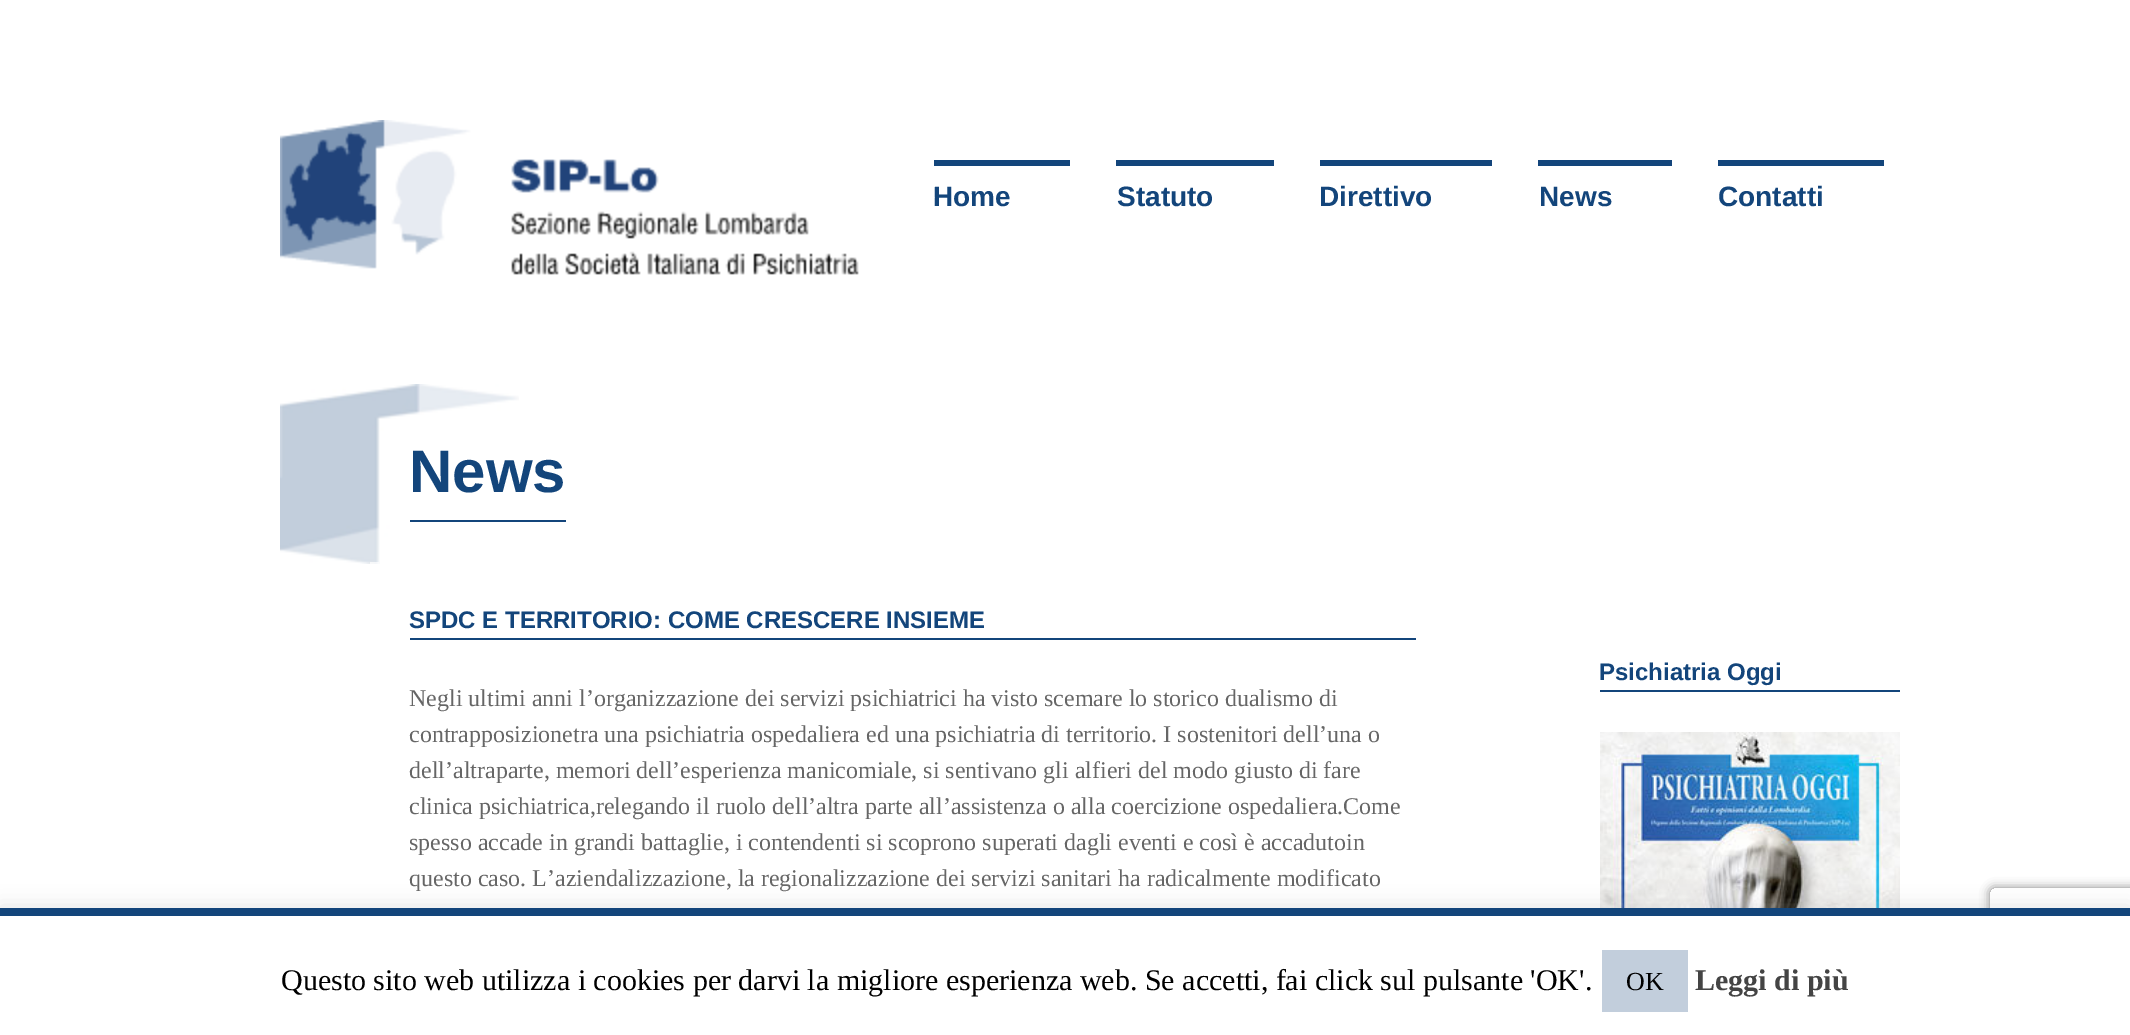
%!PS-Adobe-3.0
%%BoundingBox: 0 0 2130 1035
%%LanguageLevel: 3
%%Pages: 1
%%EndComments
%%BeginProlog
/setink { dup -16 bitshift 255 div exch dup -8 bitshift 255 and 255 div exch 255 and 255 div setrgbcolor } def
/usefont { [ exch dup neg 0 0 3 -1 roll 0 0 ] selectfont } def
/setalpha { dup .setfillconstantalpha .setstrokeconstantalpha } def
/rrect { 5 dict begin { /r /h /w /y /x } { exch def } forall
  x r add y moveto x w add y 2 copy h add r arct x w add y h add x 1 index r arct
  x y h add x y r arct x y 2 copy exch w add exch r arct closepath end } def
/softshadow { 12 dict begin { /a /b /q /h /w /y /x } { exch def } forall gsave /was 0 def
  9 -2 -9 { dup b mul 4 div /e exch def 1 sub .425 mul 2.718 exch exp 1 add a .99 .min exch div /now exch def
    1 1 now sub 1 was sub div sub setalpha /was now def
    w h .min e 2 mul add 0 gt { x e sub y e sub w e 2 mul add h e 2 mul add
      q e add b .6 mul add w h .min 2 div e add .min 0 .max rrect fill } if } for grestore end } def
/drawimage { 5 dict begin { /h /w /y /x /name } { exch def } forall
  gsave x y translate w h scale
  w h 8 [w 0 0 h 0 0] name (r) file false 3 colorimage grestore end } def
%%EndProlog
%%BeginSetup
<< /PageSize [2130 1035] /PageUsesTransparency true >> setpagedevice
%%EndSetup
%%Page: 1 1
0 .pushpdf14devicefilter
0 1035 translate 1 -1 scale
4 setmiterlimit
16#FFFFFF setink
0 0 2130 1035 rectfill
(img1.raw) 280 120 579 155 drawimage
16#13457B setink
934 160 136 6 rectfill
/LiberationSans-Bold 28 usefont
933 206 moveto (Home) show
1116 160 158 6 rectfill
1117 206 moveto (Statuto) show
1320 160 172 6 rectfill
1319 206 moveto (Direttivo) show
1538 160 134 6 rectfill
1539 206 moveto (News) show
1718 160 166 6 rectfill
1718 206 moveto (Contatti) show
(img2.raw) 280 384 239 180 drawimage
410 520 156 2 rectfill
/LiberationSans-Bold 60 usefont
409 492 moveto (News) show
0.7 setalpha
16#FFFFFF setink
370 562 9 2 rectfill
1 setalpha
16#13457B setink
410 638 1006 2 rectfill
/LiberationSans-Bold 24 usefont
409 628 moveto (SPDC E TERRITORIO: COME CRESCERE INSIEME) show
/LiberationSerif-Regular 24 usefont
16#666666 setink
[
    [(Negli ultimi anni l’organizzazione dei servizi psichiatrici ha visto scemare lo storico dualismo di) 409 706]
    [(contrapposizionetra una psichiatria ospedaliera ed una psichiatria di territorio. I sostenitori dell’una o) 409 742]
    [(dell’altraparte, memori dell’esperienza manicomiale, si sentivano gli alfieri del modo giusto di fare) 409 778]
    [(clinica psichiatrica,relegando il ruolo dell’altra parte all’assistenza o alla coercizione ospedaliera.Come) 409 814]
    [(spesso accade in grandi battaglie, i contendenti si scoprono superati dagli eventi e così è accadutoin) 409 850]
    [(questo caso. L’aziendalizzazione, la regionalizzazione dei servizi sanitari ha radicalmente modificato) 409 886]
] { aload pop moveto show } forall
16#13457B setink
1600 690 300 2 rectfill
/LiberationSans-Bold 24 usefont
1599 680 moveto (Psichiatria Oggi) show
(img3.raw) 1600 732 300 176 drawimage
16#ACABAB setink
0 906 2130 128 0 10 0.3 softshadow
gsave
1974 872 moveto 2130 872 lineto 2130 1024 lineto 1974 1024 lineto closepath 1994 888 moveto 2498 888 lineto 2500 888 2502 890 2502 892 curveto 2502 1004 lineto 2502 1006 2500 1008 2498 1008 curveto 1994 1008 lineto 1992 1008 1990 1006 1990 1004 curveto 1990 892 lineto 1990 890 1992 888 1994 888 curveto closepath eoclip newpath
16#808080 setink
1990 888 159 120 4 5 1 softshadow
grestore
16#FFFFFF setink
0 916 2130 119 rectfill
16#13457B setink
0 908 2130 8 rectfill
/LiberationSerif-Regular 30 usefont
16#000000 setink
281 990 moveto (Questo sito web utilizza i cookies per darvi la migliore esperienza web. Se accetti, fai click sul pulsante 'OK'.) show
16#C2CEDC setink
1602 950 86 62 rectfill
/LiberationSerif-Regular 26 usefont
16#000000 setink
1626 990 moveto (OK) show
/LiberationSerif-Bold 30 usefont
16#444444 setink
1695 990 moveto (Leggi di più) show
.poppdf14devicefilter showpage
%%EOF
